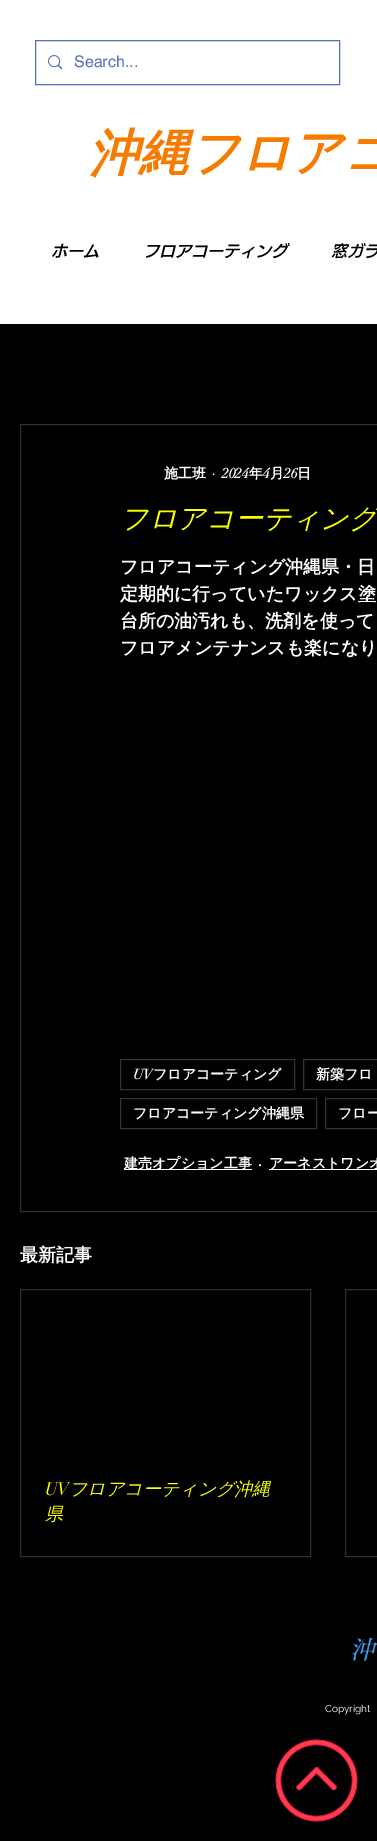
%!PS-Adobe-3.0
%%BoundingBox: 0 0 377 1841
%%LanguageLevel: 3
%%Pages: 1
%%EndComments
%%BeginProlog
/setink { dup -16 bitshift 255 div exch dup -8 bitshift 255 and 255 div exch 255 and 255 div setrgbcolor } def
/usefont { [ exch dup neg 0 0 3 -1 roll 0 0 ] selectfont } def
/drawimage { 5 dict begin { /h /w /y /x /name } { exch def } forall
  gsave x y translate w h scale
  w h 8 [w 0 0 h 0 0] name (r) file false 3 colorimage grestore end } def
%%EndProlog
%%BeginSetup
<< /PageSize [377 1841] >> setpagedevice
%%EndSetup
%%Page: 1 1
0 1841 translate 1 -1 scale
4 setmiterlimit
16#000000 setink
0 0 377 1841 rectfill
16#FFFFFF setink
0 0 377 324 rectfill
16#566FB8 setink
35.5 40.5 304 44 rectstroke
(img1.raw) 48 55 14 15 drawimage
/helvetica-Regular 16 usefont
74 67 moveto (Search...) show
/WenQuanYiZenHei-BoldItalic 50 usefont
16#F77B00 setink
89 170 moveto (沖縄フロアコ) show
/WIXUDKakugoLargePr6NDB-SemiBoldItalic 16 usefont
16#000000 setink
[
    [(ホーム) 51 257]
    [(フロアコーティング) 143 257]
    [(窓ガラ) 331 257]
] { aload pop moveto show } forall
16#303030 setink
20.5 424.5 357 787 rectstroke
/WenQuanYiZenHei-Bold 14 usefont
16#FFFFFF setink
164 478 moveto (施工班) show
/didot-Bold 14 usefont
212 478 moveto (·) show
222 478 moveto (2024) show
/WenQuanYiZenHei-Bold 14 usefont
249 478 moveto (年) show
/didot-Bold 14 usefont
263 478 moveto (4) show
/WenQuanYiZenHei-Bold 14 usefont
270 478 moveto (月) show
/didot-Bold 14 usefont
284 478 moveto (26) show
/WenQuanYiZenHei-Bold 14 usefont
297 478 moveto (日) show
/WenQuanYiZenHei-MediumItalic 28 usefont
16#F8FF00 setink
120 528 moveto (フロアコーティング) show
/WenQuanYiZenHei-Bold 18 usefont
16#FFFFFF setink
[
    [(フロアコーティング沖縄県・日) 120 573]
    [(定期的に行っていたワックス塗) 120 600]
    [(台所の油汚れも、洗剤を使って) 120 627]
    [(フロアメンテナンスも楽になり) 120 654]
] { aload pop moveto show } forall
16#333333 setink
120.5 1059.5 174 30 rectstroke
/didot-Bold 14 usefont
16#FFFFFF setink
133 1079 moveto (UV) show
/WenQuanYiZenHei-Bold 14 usefont
153 1079 moveto (フロアコーティング) show
16#333333 setink
303.5 1059.5 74 30 rectstroke
16#FFFFFF setink
316 1079 moveto (新築フロ) show
16#333333 setink
120.5 1098.5 196 30 rectstroke
16#FFFFFF setink
133 1118 moveto (フロアコーティング沖縄県) show
16#333333 setink
325.5 1098.5 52 30 rectstroke
16#FFFFFF setink
338 1118 moveto (フロー) show
124 1169 128 1 rectfill
124 1168 moveto (建売オプション工事) show
/didot-Bold 18 usefont
258 1170 moveto (·) show
269 1169 108 1 rectfill
/WenQuanYiZenHei-Bold 14 usefont
269 1168 moveto (アーネストワンオ) show
/WenQuanYiZenHei-Bold 18 usefont
20 1261 moveto (最新記事) show
16#303030 setink
20.5 1289.5 290 267 rectstroke
/PlayfairDisplay-Italic 18 usefont
16#F8FF00 setink
45 1495 moveto (UV) show
/WenQuanYiZenHei-MediumItalic 18 usefont
69 1495 moveto (フロアコーティング沖縄) show
45 1520 moveto (県) show
16#303030 setink
345.5 1289.5 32 267 rectstroke
/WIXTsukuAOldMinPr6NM-MediumItalic 26 usefont
16#3D9BE9 setink
349 1659 moveto (沖) show
/Raleway-Regular 10 usefont
16#FFFFFF setink
325 1712 moveto (Copyright) show
(img2.raw) 275 1739 83 83 drawimage
showpage
%%EOF
